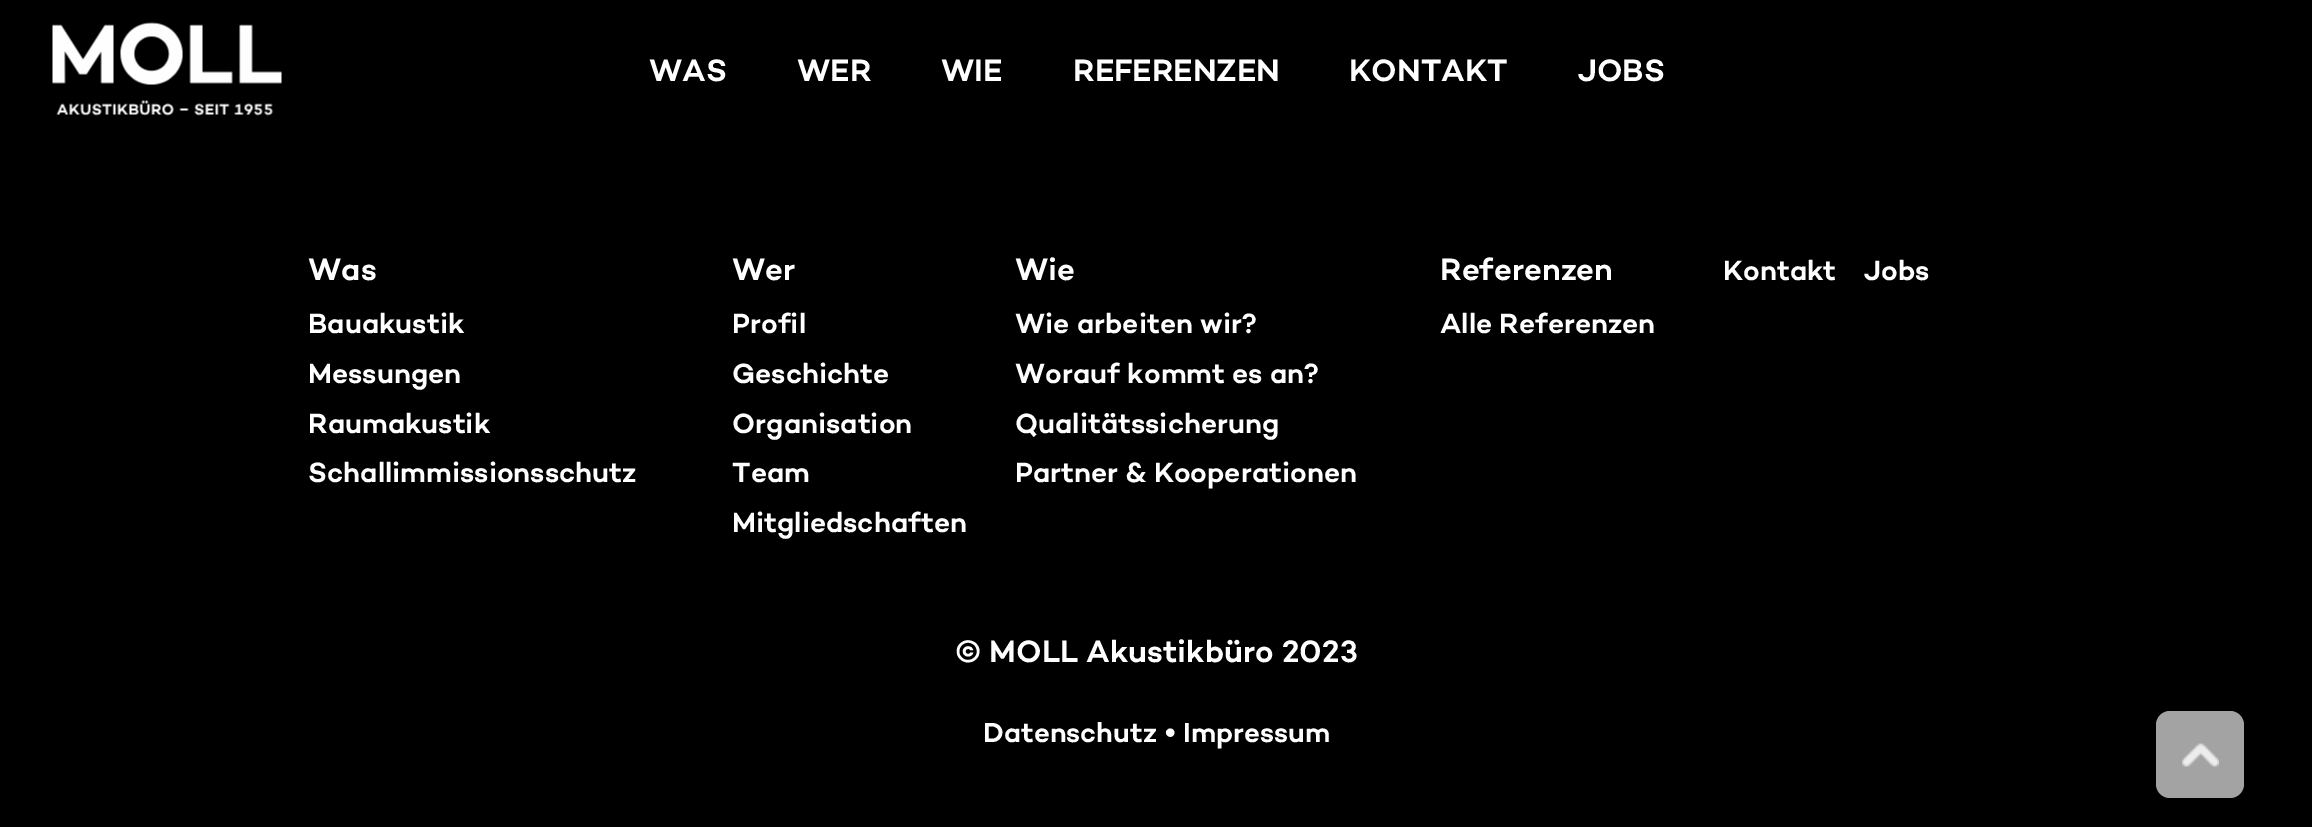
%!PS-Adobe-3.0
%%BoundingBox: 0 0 2312 827
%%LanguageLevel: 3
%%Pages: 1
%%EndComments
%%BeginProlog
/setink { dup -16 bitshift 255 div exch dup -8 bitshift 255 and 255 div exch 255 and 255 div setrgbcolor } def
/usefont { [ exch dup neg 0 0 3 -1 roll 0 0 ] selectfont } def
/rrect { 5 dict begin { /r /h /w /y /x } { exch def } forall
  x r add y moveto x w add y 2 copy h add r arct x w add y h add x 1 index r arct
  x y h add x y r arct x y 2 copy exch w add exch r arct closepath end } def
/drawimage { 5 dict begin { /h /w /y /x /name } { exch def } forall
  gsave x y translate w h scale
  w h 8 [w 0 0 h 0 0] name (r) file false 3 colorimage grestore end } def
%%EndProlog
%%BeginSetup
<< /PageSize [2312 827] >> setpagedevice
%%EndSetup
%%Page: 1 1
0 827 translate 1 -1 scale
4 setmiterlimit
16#000000 setink
0 0 2312 827 rectfill
(img1.raw) 52 22 230 94 drawimage
/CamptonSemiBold-Regular 31.5 usefont
16#FFFFFF setink
[
    [(WAS) 649 81]
    [(WER) 797 81]
    [(WIE) 941 81]
    [(REFERENZEN) 1073 81]
    [(KONTAKT) 1349 81]
    [(JOBS) 1578 81]
    [(Was) 308 280]
] { aload pop moveto show } forall
/CamptonSemiBold-Regular 28.4 usefont
[
    [(Bauakustik) 308 333]
    [(Messungen) 308 383]
    [(Raumakustik) 308 433]
    [(Schallimmissionsschutz) 308 482]
] { aload pop moveto show } forall
/CamptonSemiBold-Regular 31.5 usefont
732 280 moveto (Wer) show
/CamptonSemiBold-Regular 28.4 usefont
[
    [(Profil) 732 333]
    [(Geschichte) 732 383]
    [(Organisation) 732 433]
    [(Team) 732 482]
    [(Mitgliedschaften) 732 532]
] { aload pop moveto show } forall
/CamptonSemiBold-Regular 31.5 usefont
1015 280 moveto (Wie) show
/CamptonSemiBold-Regular 28.4 usefont
[
    [(Wie arbeiten wir?) 1015 333]
    [(Worauf kommt es an?) 1015 383]
    [(Qualitätssicherung) 1015 433]
    [(Partner & Kooperationen) 1015 482]
] { aload pop moveto show } forall
/CamptonSemiBold-Regular 31.5 usefont
1440 280 moveto (Referenzen) show
/CamptonSemiBold-Regular 28.4 usefont
[
    [(Alle Referenzen) 1440 333]
    [(Kontakt) 1723 280]
    [(Jobs) 1864 280]
] { aload pop moveto show } forall
/CamptonSemiBold-Regular 31.5 usefont
955 662 moveto (© MOLL Akustikbüro 2023) show
/CamptonSemiBold-Regular 28 usefont
983 742 moveto (Datenschutz) show
/CamptonSemiBold-Regular 31.5 usefont
1165 742 moveto (•) show
/CamptonSemiBold-Regular 28 usefont
1183 742 moveto (Impressum) show
16#A3A3A3 setink
2156 711 88 87 14 rrect fill
(img2.raw) 2182 743 37 24 drawimage
showpage
%%EOF
